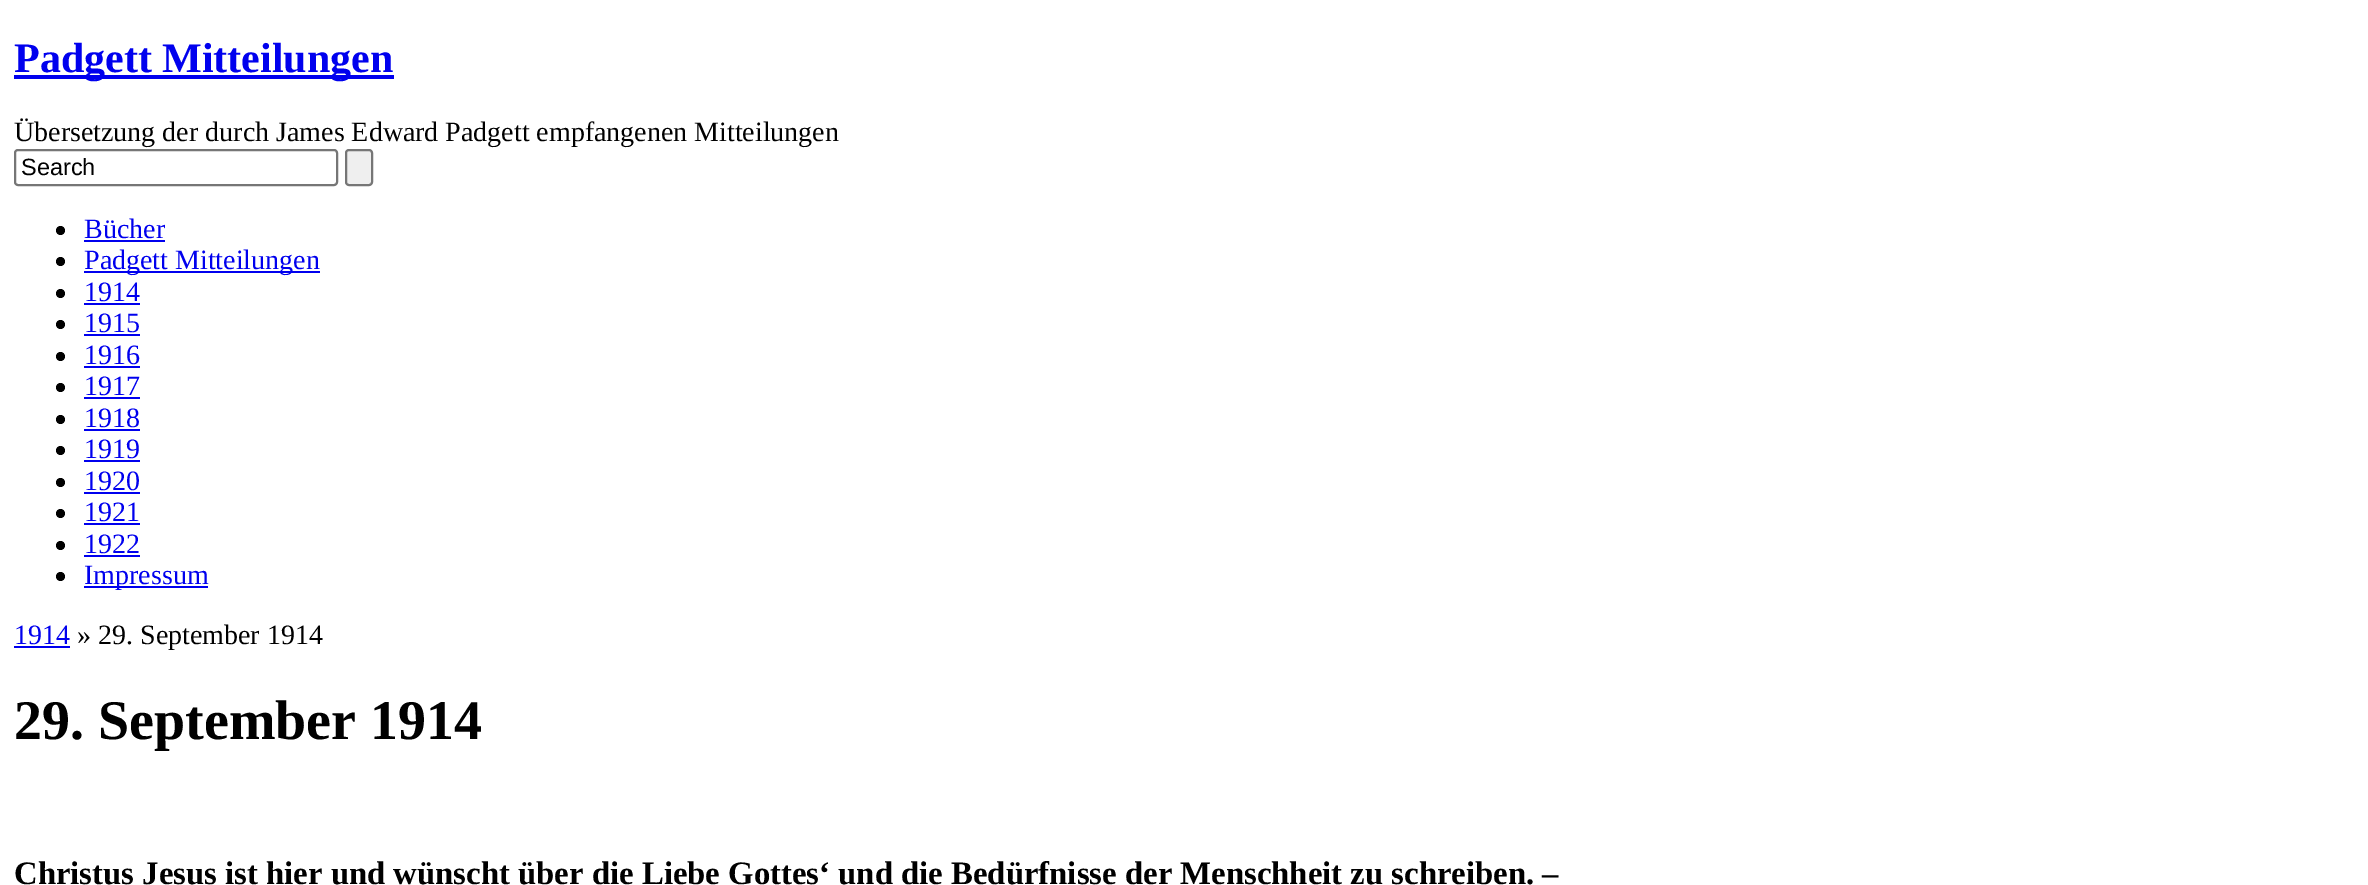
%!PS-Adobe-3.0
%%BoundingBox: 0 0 2368 885
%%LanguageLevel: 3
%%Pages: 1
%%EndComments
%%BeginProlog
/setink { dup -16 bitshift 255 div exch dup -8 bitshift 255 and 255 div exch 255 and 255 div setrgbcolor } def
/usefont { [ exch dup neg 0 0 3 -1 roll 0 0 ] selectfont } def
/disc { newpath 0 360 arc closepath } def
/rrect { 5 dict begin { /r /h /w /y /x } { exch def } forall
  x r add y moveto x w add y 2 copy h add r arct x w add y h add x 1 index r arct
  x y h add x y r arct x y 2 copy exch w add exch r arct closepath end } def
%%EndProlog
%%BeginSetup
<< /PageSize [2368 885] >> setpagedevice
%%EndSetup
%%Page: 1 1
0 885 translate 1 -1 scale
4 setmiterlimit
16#FFFFFF setink
0 0 2368 885 rectfill
16#0000EE setink
14 75 380 4 rectfill
/LiberationSerif-Bold 42 usefont
14 72 moveto (Padgett Mitteilungen) show
/LiberationSerif-Regular 28 usefont
16#000000 setink
14 141 moveto (Übersetzung der durch James Edward Padgett empfangenen Mitteilungen) show
16#767676 setink
2 setlinewidth
15 150 322 35 3 rrect stroke
/LiberationSans-Regular 23.5 usefont
16#000000 setink
21 175 moveto (Search) show
16#EFEFEF setink
346 150 26 35 3 rrect gsave fill grestore
16#767676 setink
stroke
16#000000 setink
60.5 230.5 4.5 disc fill
/LiberationSerif-Regular 28 usefont
16#0000EE setink
84 238 moveto (Bücher) show
84 240 81 2 rectfill
16#000000 setink
60.5 261.5 4.5 disc fill
16#0000EE setink
84 271 236 2 rectfill
84 269 moveto (Padgett Mitteilungen) show
16#000000 setink
60.5 293.5 4.5 disc fill
16#0000EE setink
84 301 moveto (1914) show
84 303 56 2 rectfill
16#000000 setink
60.5 324.5 4.5 disc fill
16#0000EE setink
84 332 moveto (1915) show
84 334 56 2 rectfill
16#000000 setink
60.5 356.5 4.5 disc fill
16#0000EE setink
84 364 moveto (1916) show
84 366 56 2 rectfill
16#000000 setink
60.5 387.5 4.5 disc fill
16#0000EE setink
84 395 moveto (1917) show
84 397 56 2 rectfill
16#000000 setink
60.5 419.5 4.5 disc fill
16#0000EE setink
84 427 moveto (1918) show
84 429 56 2 rectfill
16#000000 setink
60.5 450.5 4.5 disc fill
16#0000EE setink
84 458 moveto (1919) show
84 460 56 2 rectfill
16#000000 setink
60.5 482.5 4.5 disc fill
16#0000EE setink
84 490 moveto (1920) show
84 492 56 2 rectfill
16#000000 setink
60.5 513.5 4.5 disc fill
16#0000EE setink
84 521 moveto (1921) show
84 523 56 2 rectfill
16#000000 setink
60.5 545.5 4.5 disc fill
16#0000EE setink
84 553 moveto (1922) show
84 555 56 2 rectfill
16#000000 setink
60.5 576.5 4.5 disc fill
16#0000EE setink
84 586 124 2 rectfill
84 584 moveto (Impressum) show
14 644 moveto (1914) show
14 646 56 2 rectfill
16#000000 setink
77 644 moveto (» 29. September 1914) show
/LiberationSerif-Bold 56 usefont
14 739 moveto (29. September 1914) show
/LiberationSerif-Bold 32.75 usefont
14 884 moveto (Christus Jesus ist hier und wünscht über die Liebe Gottes‘ und die Bedürfnisse der Menschheit zu schreiben. –) show
showpage
%%EOF
